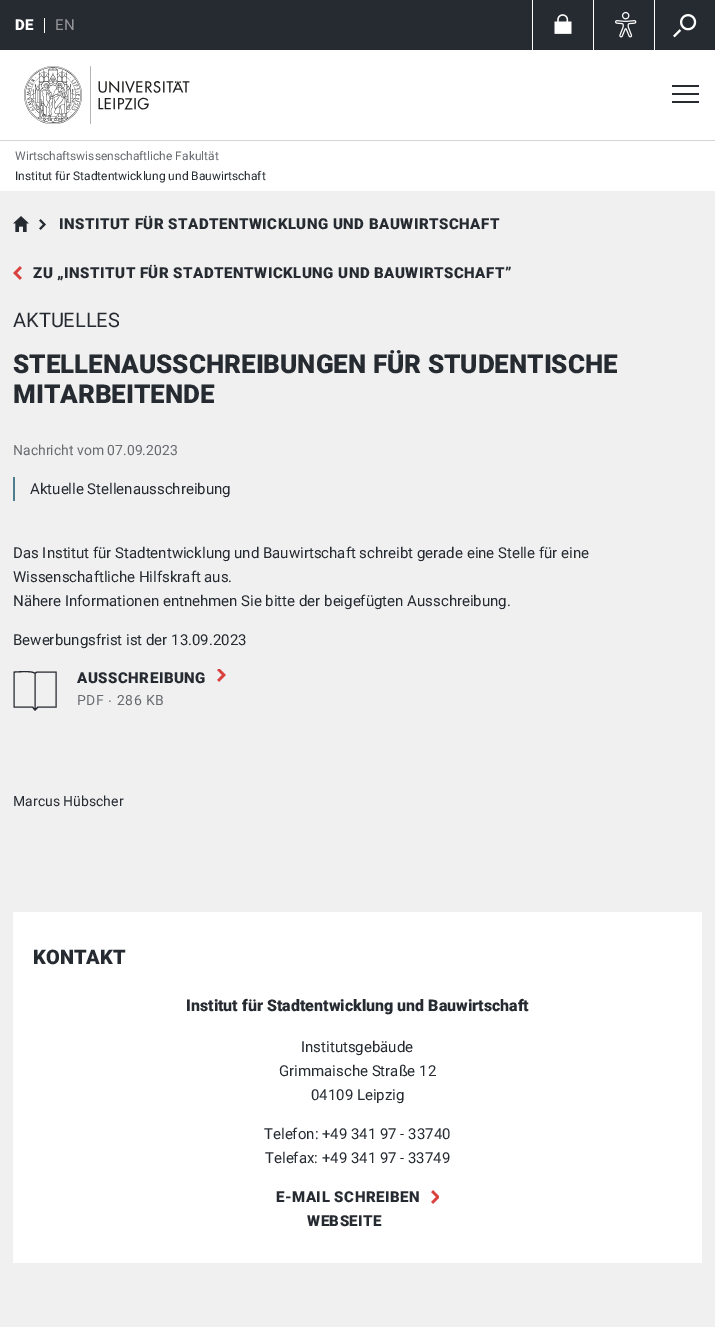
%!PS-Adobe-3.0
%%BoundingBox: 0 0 715 1327
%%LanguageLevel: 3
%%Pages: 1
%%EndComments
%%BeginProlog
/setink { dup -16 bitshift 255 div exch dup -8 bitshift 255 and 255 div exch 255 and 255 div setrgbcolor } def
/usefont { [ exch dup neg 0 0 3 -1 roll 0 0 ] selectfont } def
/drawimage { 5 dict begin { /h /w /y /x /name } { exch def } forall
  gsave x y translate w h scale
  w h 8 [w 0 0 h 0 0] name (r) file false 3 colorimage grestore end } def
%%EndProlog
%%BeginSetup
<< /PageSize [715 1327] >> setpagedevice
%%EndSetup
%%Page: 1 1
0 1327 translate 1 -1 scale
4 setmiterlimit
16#F0F0F0 setink
0 0 715 1327 rectfill
16#FFFFFF setink
0 50 715 141 rectfill
16#262A31 setink
0 0 715 50 rectfill
/Roboto-Black 15 usefont
16#FFFFFF setink
15 30 moveto 0.5 0 (DE) ashow
44 18 1 15 rectfill
/Roboto-Regular 15 usefont
16#939598 setink
55 30 moveto 0.5 0 (EN) ashow
16#FFFFFF setink
532 0 1 50 rectfill
(img1.raw) 554 14 18 20 drawimage
593 0 1 50 rectfill
(img2.raw) 615 11 22 27 drawimage
654 0 1 50 rectfill
(img3.raw) 673 14 24 24 drawimage
[
    [672 93 27 2 16#262A31]
    [672 85 27 2 16#262A31]
    [672 101 27 2 16#262A31]
] { aload pop setink rectfill } forall
(img4.raw) 24 66 166 59 drawimage
16#D4D4D6 setink
0 140 715 1 rectfill
/Roboto-Regular 12 usefont
16#676A6F setink
15 160 moveto (Wirtschaftswissenschaftliche Fakultät) show
16#262A31 setink
15 180 moveto (Institut für Stadtentwicklung und Bauwirtschaft) show
(img5.raw) 13 216 16 16 drawimage
(img6.raw) 39 219 7 11 drawimage
/Roboto-Black 15 usefont
59 229 moveto 0.5 0 (INSTITUT FÜR STADTENTWICKLUNG UND BAUWIRTSCHAFT) ashow
(img7.raw) 13 266 9 14 drawimage
33 278 moveto 0.5 0 (ZU „INSTITUT FÜR STADTENTWICKLUNG UND BAUWIRTSCHAFT”) ashow
/Roboto-Regular 20 usefont
13 327 moveto (AKTUELLES) show
/Roboto-Black 26 usefont
13 373 moveto (STELLENAUSSCHREIBUNGEN FÜR STUDENTISCHE) show
13 403 moveto (MITARBEITENDE) show
/Roboto-Regular 14 usefont
16#676A6F setink
13 455 moveto (Nachricht vom 07.09.2023) show
16#507D8E setink
13 477 2 24 rectfill
/Roboto-Regular 15 usefont
16#262A31 setink
[
    [(Aktuelle Stellenausschreibung) 30 494]
    [(Das Institut für Stadtentwicklung und Bauwirtschaft schreibt gerade eine Stelle für eine) 13 558]
    [(Wissenschaftliche Hilfskraft aus.) 13 582]
    [(Nähere Informationen entnehmen Sie bitte der beigefügten Ausschreibung.) 13 606]
    [(Bewerbungsfrist ist der 13.09.2023) 13 645]
] { aload pop moveto show } forall
1.1 setlinewidth
38 672 moveto 37 672 35.5 672.5 35 673.5 curveto 33 670.5 18 672 14 672 curveto 14 707 lineto 32.5 707 lineto 35 710 lineto 38 707 lineto 56 707 lineto 56 672 lineto closepath 35 673 moveto 35 710 lineto stroke
/Roboto-Black 15 usefont
77 683 moveto 0.5 0 (AUSSCHREIBUNG) ashow
(img8.raw) 217 669 9 13 drawimage
/Roboto-Regular 14 usefont
16#676A6F setink
77 705 moveto 0.5 0 (PDF) ashow
/LiberationSans-Regular 14 usefont
108 705 moveto 0.5 0 (∙) ashow
/Roboto-Regular 14 usefont
117 705 moveto 0.5 0 (286 KB) ashow
16#262A31 setink
13 806 moveto (Marcus Hübscher) show
16#FFFFFF setink
13 912 689 351 rectfill
/Roboto-Black 20 usefont
16#262A31 setink
33 964 moveto (KONTAKT) show
/Roboto-Black 16 usefont
186 1011 moveto (Institut für Stadtentwicklung und Bauwirtschaft) show
/Roboto-Regular 15 usefont
[
    [(Institutsgebäude) 301 1052]
    [(Grimmaische Straße 12) 279 1076]
    [(04109 Leipzig) 311 1100]
    [(Telefon: +49 341 97 - 33740) 264 1139]
    [(Telefax: +49 341 97 - 33749) 265 1163]
] { aload pop moveto show } forall
/Roboto-Black 15 usefont
276 1202 moveto 0.5 0 (E-MAIL SCHREIBEN) ashow
(img9.raw) 431 1190 8 14 drawimage
307 1226 moveto 0.5 0 (WEBSEITE) ashow
showpage
%%EOF
